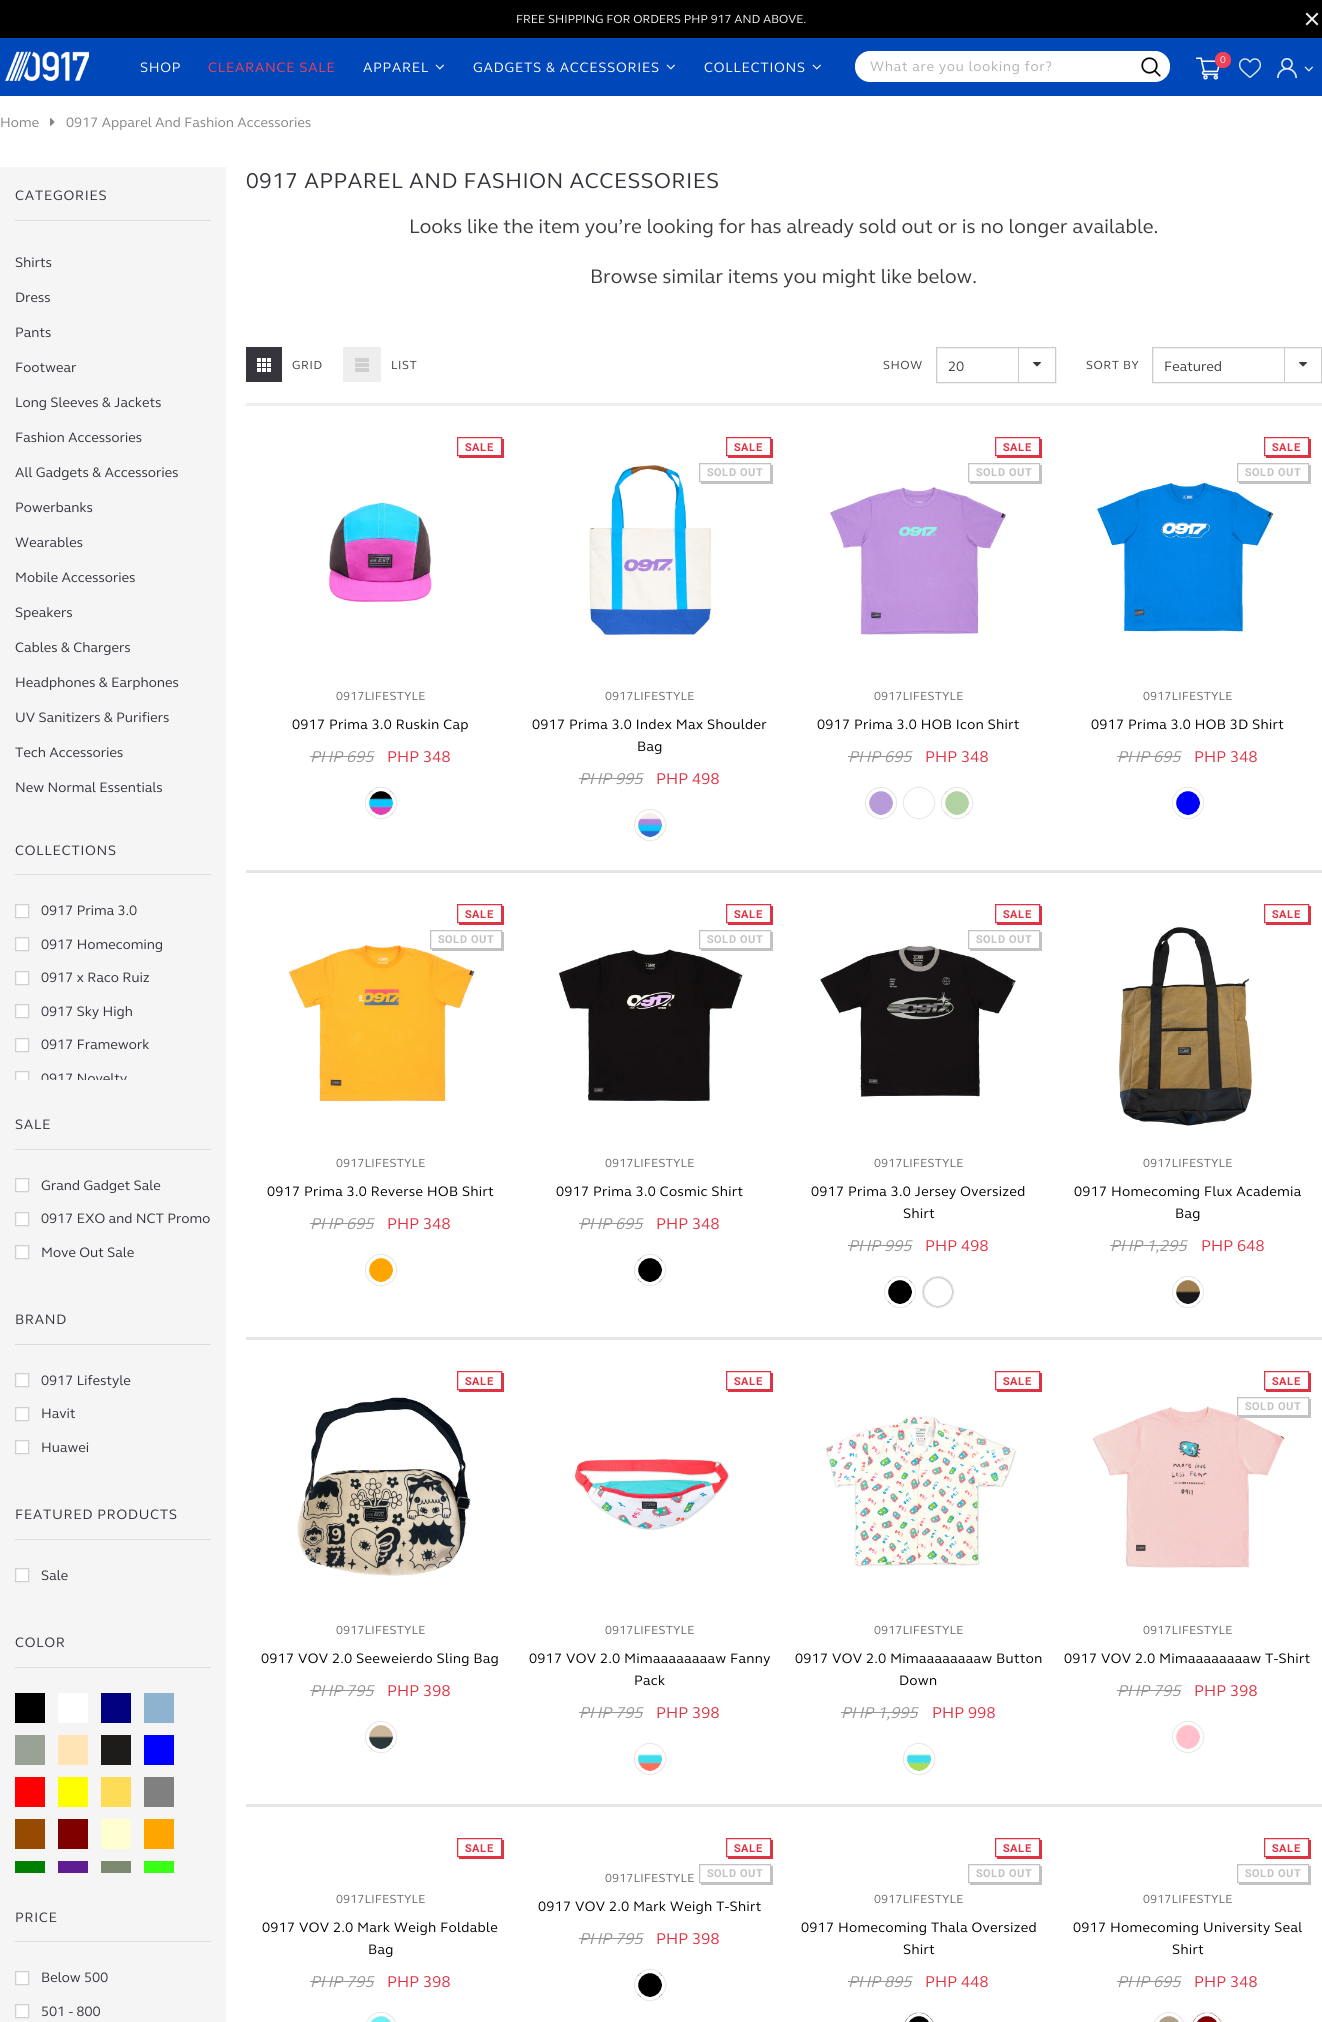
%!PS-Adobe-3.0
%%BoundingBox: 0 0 1322 2022
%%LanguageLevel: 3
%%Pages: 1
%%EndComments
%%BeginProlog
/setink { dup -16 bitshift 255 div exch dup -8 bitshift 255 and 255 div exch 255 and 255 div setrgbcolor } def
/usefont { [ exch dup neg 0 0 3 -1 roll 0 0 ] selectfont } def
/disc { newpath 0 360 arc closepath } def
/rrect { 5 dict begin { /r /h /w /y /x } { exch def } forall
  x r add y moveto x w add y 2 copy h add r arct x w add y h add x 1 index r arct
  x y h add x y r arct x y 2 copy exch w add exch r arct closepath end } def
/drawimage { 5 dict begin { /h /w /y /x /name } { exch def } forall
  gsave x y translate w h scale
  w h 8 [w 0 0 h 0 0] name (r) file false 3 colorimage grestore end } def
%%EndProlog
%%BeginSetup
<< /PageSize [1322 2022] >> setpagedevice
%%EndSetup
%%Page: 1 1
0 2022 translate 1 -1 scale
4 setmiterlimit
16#FFFFFF setink
0 0 1322 2022 rectfill
16#000000 setink
0 0 1322 38 rectfill
(img1.raw) 517 14 289 10 drawimage
(img2.raw) 1305 12 14 14 drawimage
16#0047BA setink
0 38 1322 58 rectfill
(img3.raw) 5 51 84 30 drawimage
(img4.raw) 140 62 40 11 drawimage
(img5.raw) 208 62 127 11 drawimage
(img6.raw) 363 62 65 10 drawimage
(img7.raw) 435 64 9 6 drawimage
(img8.raw) 473 62 186 11 drawimage
(img7.raw) 666 64 9 6 drawimage
(img9.raw) 704 62 101 11 drawimage
(img7.raw) 812 64 9 6 drawimage
16#FFFFFF setink
855 51 315 31 15.5 rrect fill
(img10.raw) 870 61 182 13 drawimage
(img11.raw) 1141 57 20 20 drawimage
(img12.raw) 1196 57 24 23 drawimage
16#F14156 setink
1223 60 8 disc fill
(img13.raw) 1220 56 6 8 drawimage
(img14.raw) 1239 58 22 20 drawimage
(img15.raw) 1277 58 20 20 drawimage
(img7.raw) 1304 66 9 6 drawimage
(img16.raw) 1 117 38 11 drawimage
(img17.raw) 50 118 5 8 drawimage
(img18.raw) 66 117 245 13 drawimage
16#F5F5F5 setink
0 167 226 1855 rectfill
16#DCDCDC setink
15 220 196 1 rectfill
(img19.raw) 15 190 91 11 drawimage
(img20.raw) 15 257 37 11 drawimage
(img21.raw) 16 292 34 11 drawimage
(img22.raw) 16 327 35 11 drawimage
(img23.raw) 16 362 61 11 drawimage
(img24.raw) 16 397 145 14 drawimage
(img25.raw) 16 432 126 11 drawimage
(img26.raw) 15 467 163 14 drawimage
(img27.raw) 16 502 77 11 drawimage
(img28.raw) 15 537 68 11 drawimage
(img29.raw) 16 572 119 11 drawimage
(img30.raw) 15 607 57 13 drawimage
(img31.raw) 15 642 115 14 drawimage
(img32.raw) 16 677 163 13 drawimage
(img33.raw) 16 712 153 11 drawimage
(img34.raw) 15 747 108 11 drawimage
(img35.raw) 16 782 146 11 drawimage
15 874 196 1 rectfill
(img36.raw) 15 845 101 11 drawimage
16#FFFFFF setink
15.5 904.5 moveto 28.5 904.5 lineto 28.5 917.5 lineto 15.5 917.5 lineto closepath gsave fill grestore
16#D0D0D0 setink
stroke
(img37.raw) 41 905 96 11 drawimage
16#FFFFFF setink
15.5 937.5 moveto 28.5 937.5 lineto 28.5 950.5 lineto 15.5 950.5 lineto closepath gsave fill grestore
16#D0D0D0 setink
stroke
(img38.raw) 41 939 121 14 drawimage
16#FFFFFF setink
15.5 971.5 moveto 28.5 971.5 lineto 28.5 984.5 lineto 15.5 984.5 lineto closepath gsave fill grestore
16#D0D0D0 setink
stroke
(img39.raw) 41 972 108 11 drawimage
16#FFFFFF setink
15.5 1004.5 moveto 28.5 1004.5 lineto 28.5 1017.5 lineto 15.5 1017.5 lineto closepath gsave fill grestore
16#D0D0D0 setink
stroke
(img40.raw) 41 1006 91 14 drawimage
16#FFFFFF setink
15.5 1038.5 moveto 28.5 1038.5 lineto 28.5 1051.5 lineto 15.5 1051.5 lineto closepath gsave fill grestore
16#D0D0D0 setink
stroke
(img41.raw) 41 1039 108 11 drawimage
16#FFFFFF setink
16 1072 12 8 rectfill
gsave
15 900 196 180 rectclip
16#D0D0D0 setink
15.5 1071.5 13 13 rectstroke
grestore
(img42.raw) 41 1073 86 7 drawimage
16#DCDCDC setink
15 1149 196 1 rectfill
(img43.raw) 15 1119 35 11 drawimage
16#FFFFFF setink
15.5 1178.5 moveto 28.5 1178.5 lineto 28.5 1191.5 lineto 15.5 1191.5 lineto closepath gsave fill grestore
16#D0D0D0 setink
stroke
(img44.raw) 41 1180 120 14 drawimage
16#FFFFFF setink
15.5 1212.5 moveto 28.5 1212.5 lineto 28.5 1225.5 lineto 15.5 1225.5 lineto closepath gsave fill grestore
16#D0D0D0 setink
stroke
(img45.raw) 41 1213 169 11 drawimage
16#FFFFFF setink
15.5 1245.5 moveto 28.5 1245.5 lineto 28.5 1258.5 lineto 15.5 1258.5 lineto closepath gsave fill grestore
16#D0D0D0 setink
stroke
(img46.raw) 42 1247 92 11 drawimage
16#DCDCDC setink
15 1344 196 1 rectfill
(img47.raw) 16 1314 50 10 drawimage
16#FFFFFF setink
15.5 1373.5 moveto 28.5 1373.5 lineto 28.5 1386.5 lineto 15.5 1386.5 lineto closepath gsave fill grestore
16#D0D0D0 setink
stroke
(img48.raw) 41 1375 90 14 drawimage
16#FFFFFF setink
15.5 1407.5 moveto 28.5 1407.5 lineto 28.5 1420.5 lineto 15.5 1420.5 lineto closepath gsave fill grestore
16#D0D0D0 setink
stroke
(img49.raw) 42 1408 33 11 drawimage
16#FFFFFF setink
15.5 1440.5 moveto 28.5 1440.5 lineto 28.5 1453.5 lineto 15.5 1453.5 lineto closepath gsave fill grestore
16#D0D0D0 setink
stroke
(img50.raw) 42 1442 47 11 drawimage
16#DCDCDC setink
15 1539 196 1 rectfill
(img51.raw) 16 1509 161 11 drawimage
16#FFFFFF setink
15.5 1568.5 moveto 28.5 1568.5 lineto 28.5 1581.5 lineto 15.5 1581.5 lineto closepath gsave fill grestore
16#D0D0D0 setink
stroke
(img52.raw) 41 1570 27 11 drawimage
16#DCDCDC setink
15 1667 196 1 rectfill
(img53.raw) 15 1637 50 11 drawimage
[
    [15 1693 30 30 16#000000]
    [58 1693 30 30 16#FFFFFF]
    [101 1693 30 30 16#010180]
    [144 1693 30 30 16#8EB3CF]
    [15 1735 30 30 16#9AA296]
    [58 1735 30 30 16#FFE5B5]
    [101 1735 30 30 16#1E1C1A]
    [144 1735 30 30 16#0000FF]
    [15 1777 30 30 16#FE0000]
    [58 1777 30 30 16#FFFF00]
    [101 1777 30 30 16#FFDC58]
    [144 1777 30 30 16#808080]
    [15 1819 30 30 16#964B00]
    [58 1819 30 30 16#800000]
    [101 1819 30 30 16#FFFED1]
    [144 1819 30 30 16#FFA500]
    [15 1861 30 12 16#008000]
    [58 1861 30 12 16#5E1E92]
    [101 1861 30 12 16#7C8A6F]
    [144 1861 30 12 16#39FF14]
    [15 1941 196 1 16#DCDCDC]
] { aload pop setink rectfill } forall
(img54.raw) 16 1912 41 11 drawimage
16#FFFFFF setink
15.5 1971.5 moveto 28.5 1971.5 lineto 28.5 1984.5 lineto 15.5 1984.5 lineto closepath gsave fill grestore
16#D0D0D0 setink
stroke
(img55.raw) 42 1972 66 11 drawimage
16#FFFFFF setink
15.5 2004.5 moveto 28.5 2004.5 lineto 28.5 2017.5 lineto 15.5 2017.5 lineto closepath gsave fill grestore
16#D0D0D0 setink
stroke
(img56.raw) 42 2006 58 11 drawimage
(img57.raw) 246 172 472 17 drawimage
(img58.raw) 411 218 746 20 drawimage
(img59.raw) 592 268 384 20 drawimage
[
    [246 347 36 35 16#37353C]
    [262 358 4 4 16#FFFFFF]
    [257 358 4 4 16#FFFFFF]
    [267 358 4 4 16#FFFFFF]
    [262 363 4 4 16#FFFFFF]
    [257 363 4 4 16#FFFFFF]
    [267 363 4 4 16#FFFFFF]
    [262 368 4 4 16#FFFFFF]
    [257 368 4 4 16#FFFFFF]
    [267 368 4 4 16#FFFFFF]
] { aload pop setink rectfill } forall
(img60.raw) 292 360 30 10 drawimage
[
    [343 347 38 35 16#EEEEEE]
    [355 358 14 4 16#CFCFCF]
    [355 363 14 4 16#CFCFCF]
    [355 368 14 4 16#CFCFCF]
] { aload pop setink rectfill } forall
(img61.raw) 392 360 25 10 drawimage
(img62.raw) 883 360 39 10 drawimage
16#CBCBCB setink
936.5 347.5 119 35 rectstroke
(img63.raw) 948 361 16 11 drawimage
1018 348 1 35 rectfill
(img64.raw) 1033 362 8 5 drawimage
(img65.raw) 1086 360 53 10 drawimage
1152.5 347.5 169 35 rectstroke
(img66.raw) 1165 361 56 11 drawimage
1284 348 1 35 rectfill
(img64.raw) 1299 362 8 5 drawimage
16#EEEEEE setink
246 403 1076 3 rectfill
16#DF3242 setink
459 456 moveto 459 458 lineto 504 458 lineto 504 439 lineto 502 439 lineto 502 456 lineto closepath fill
457.5 437.5 44 18 rectstroke
/Roboto-Bold 11 usefont
465 451 moveto 0.5 0 (SALE) ashow
(img67.raw) 328 502 104 101 drawimage
(img68.raw) 336 691 89 10 drawimage
(img69.raw) 292 719 176 13 drawimage
(img70.raw) 311 751 64 12 drawimage
(img71.raw) 388 751 62 12 drawimage
16#969696 setink
310 756 64 1 rectfill
16#E6E6E6 setink
381 803 15.5 disc stroke
(img72.raw) 369 791 24 24 drawimage
16#FFFFFF setink
3 setlinewidth
381 803 13.5 disc stroke
16#DF3242 setink
728 456 moveto 728 458 lineto 773 458 lineto 773 439 lineto 771 439 lineto 771 456 lineto closepath fill
1 setlinewidth
726.5 437.5 44 18 rectstroke
734 451 moveto 0.5 0 (SALE) ashow
(img73.raw) 589 465 123 170 drawimage
16#C2C2C2 setink
701 482 moveto 701 484 lineto 773 484 lineto 773 465 lineto 771 465 lineto 771 482 lineto closepath fill
699.5 463.5 71 18 rectstroke
707 476 moveto 0.5 0 (SOLD OUT) ashow
(img68.raw) 605 691 89 10 drawimage
(img74.raw) 532 719 235 11 drawimage
(img75.raw) 638 741 24 14 drawimage
(img76.raw) 580 773 64 12 drawimage
(img77.raw) 657 773 62 12 drawimage
16#969696 setink
579 778 64 1 rectfill
16#E6E6E6 setink
650 825 15.5 disc stroke
(img78.raw) 638 813 24 24 drawimage
16#FFFFFF setink
3 setlinewidth
650 825 13.5 disc stroke
16#DF3242 setink
997 456 moveto 997 458 lineto 1042 458 lineto 1042 439 lineto 1040 439 lineto 1040 456 lineto closepath fill
1 setlinewidth
995.5 437.5 44 18 rectstroke
1003 451 moveto 0.5 0 (SALE) ashow
16#C2C2C2 setink
970 482 moveto 970 484 lineto 1042 484 lineto 1042 465 lineto 1040 465 lineto 1040 482 lineto closepath fill
968.5 463.5 71 18 rectstroke
976 476 moveto 0.5 0 (SOLD OUT) ashow
(img79.raw) 830 487 178 148 drawimage
(img68.raw) 874 691 89 10 drawimage
(img80.raw) 817 719 202 11 drawimage
(img70.raw) 849 751 64 12 drawimage
(img71.raw) 926 751 62 12 drawimage
16#969696 setink
848 756 64 1 rectfill
16#E6E6E6 setink
881 803 15.5 disc stroke
(img81.raw) 869 791 24 24 drawimage
16#FFFFFF setink
3 setlinewidth
881 803 13.5 disc stroke
16#E6E6E6 setink
1 setlinewidth
919 803 15.5 disc stroke
16#FFFFFF setink
3 setlinewidth
919 803 13.5 disc stroke
16#E6E6E6 setink
1 setlinewidth
957 803 15.5 disc stroke
(img82.raw) 945 791 24 24 drawimage
16#FFFFFF setink
3 setlinewidth
957 803 13.5 disc stroke
16#DF3242 setink
1266 456 moveto 1266 458 lineto 1311 458 lineto 1311 439 lineto 1309 439 lineto 1309 456 lineto closepath fill
1 setlinewidth
1264.5 437.5 44 18 rectstroke
1272 451 moveto 0.5 0 (SALE) ashow
(img83.raw) 1097 482 177 150 drawimage
16#C2C2C2 setink
1239 482 moveto 1239 484 lineto 1311 484 lineto 1311 465 lineto 1309 465 lineto 1309 482 lineto closepath fill
1237.5 463.5 71 18 rectstroke
1245 476 moveto 0.5 0 (SOLD OUT) ashow
(img68.raw) 1143 691 89 10 drawimage
(img84.raw) 1091 719 193 11 drawimage
(img70.raw) 1118 751 64 12 drawimage
(img71.raw) 1195 751 62 12 drawimage
16#969696 setink
1117 756 64 1 rectfill
16#E6E6E6 setink
1188 803 15.5 disc stroke
16#0000FF setink
1188 803 13.5 disc gsave fill grestore
16#FFFFFF setink
3 setlinewidth
stroke
16#E6E6E6 setink
246 870 1076 3 rectfill
16#DF3242 setink
459 923 moveto 459 925 lineto 504 925 lineto 504 906 lineto 502 906 lineto 502 923 lineto closepath fill
1 setlinewidth
457.5 904.5 44 18 rectstroke
465 918 moveto 0.5 0 (SALE) ashow
(img85.raw) 287 944 188 158 drawimage
16#C2C2C2 setink
432 949 moveto 432 951 lineto 504 951 lineto 504 932 lineto 502 932 lineto 502 949 lineto closepath fill
430.5 930.5 71 18 rectstroke
438 943 moveto 0.5 0 (SOLD OUT) ashow
(img68.raw) 336 1158 89 10 drawimage
(img86.raw) 267 1186 227 11 drawimage
(img70.raw) 311 1218 64 12 drawimage
(img71.raw) 388 1218 62 12 drawimage
16#969696 setink
310 1223 64 1 rectfill
16#E6E6E6 setink
381 1270 15.5 disc stroke
16#FFA500 setink
381 1270 13.5 disc gsave fill grestore
16#FFFFFF setink
3 setlinewidth
stroke
16#DF3242 setink
728 923 moveto 728 925 lineto 773 925 lineto 773 906 lineto 771 906 lineto 771 923 lineto closepath fill
1 setlinewidth
726.5 904.5 44 18 rectstroke
734 918 moveto 0.5 0 (SALE) ashow
(img87.raw) 559 949 184 152 drawimage
16#C2C2C2 setink
701 949 moveto 701 951 lineto 773 951 lineto 773 932 lineto 771 932 lineto 771 949 lineto closepath fill
699.5 930.5 71 18 rectstroke
707 943 moveto 0.5 0 (SOLD OUT) ashow
(img68.raw) 605 1158 89 10 drawimage
(img88.raw) 556 1186 187 11 drawimage
(img70.raw) 580 1218 64 12 drawimage
(img71.raw) 657 1218 62 12 drawimage
16#969696 setink
579 1223 64 1 rectfill
16#E6E6E6 setink
650 1270 15.5 disc stroke
(img89.raw) 638 1258 24 24 drawimage
16#FFFFFF setink
3 setlinewidth
650 1270 13.5 disc stroke
16#DF3242 setink
997 923 moveto 997 925 lineto 1042 925 lineto 1042 906 lineto 1040 906 lineto 1040 923 lineto closepath fill
1 setlinewidth
995.5 904.5 44 18 rectstroke
1003 918 moveto 0.5 0 (SALE) ashow
(img90.raw) 820 945 196 152 drawimage
16#C2C2C2 setink
970 949 moveto 970 951 lineto 1042 951 lineto 1042 932 lineto 1040 932 lineto 1040 949 lineto closepath fill
968.5 930.5 71 18 rectstroke
976 943 moveto 0.5 0 (SOLD OUT) ashow
(img68.raw) 874 1158 89 10 drawimage
(img91.raw) 811 1186 214 14 drawimage
(img92.raw) 903 1208 32 11 drawimage
(img76.raw) 849 1240 64 12 drawimage
(img77.raw) 926 1240 62 12 drawimage
16#969696 setink
848 1245 64 1 rectfill
16#E6E6E6 setink
900 1292 15.5 disc stroke
(img89.raw) 888 1280 24 24 drawimage
16#FFFFFF setink
3 setlinewidth
900 1292 13.5 disc stroke
16#E6E6E6 setink
1 setlinewidth
938 1292 15.5 disc stroke
16#FFFFFF setink
938 1292 14.5 disc gsave fill grestore
16#D1D1D1 setink
stroke
16#DF3242 setink
1266 923 moveto 1266 925 lineto 1311 925 lineto 1311 906 lineto 1309 906 lineto 1309 923 lineto closepath fill
1264.5 904.5 44 18 rectstroke
1272 918 moveto 0.5 0 (SALE) ashow
(img93.raw) 1119 927 134 199 drawimage
(img68.raw) 1143 1158 89 10 drawimage
(img94.raw) 1074 1186 227 14 drawimage
(img75.raw) 1176 1208 24 14 drawimage
(img95.raw) 1111 1240 77 14 drawimage
(img96.raw) 1202 1240 62 12 drawimage
16#969696 setink
1110 1245 77 1 rectfill
16#E6E6E6 setink
1188 1292 15.5 disc stroke
(img97.raw) 1176 1280 24 24 drawimage
16#FFFFFF setink
3 setlinewidth
1188 1292 13.5 disc stroke
16#E6E6E6 setink
246 1337 1076 3 rectfill
16#DF3242 setink
459 1390 moveto 459 1392 lineto 504 1392 lineto 504 1373 lineto 502 1373 lineto 502 1390 lineto closepath fill
1 setlinewidth
457.5 1371.5 44 18 rectstroke
465 1385 moveto 0.5 0 (SALE) ashow
(img98.raw) 297 1397 174 179 drawimage
(img68.raw) 336 1625 89 10 drawimage
(img99.raw) 261 1653 237 14 drawimage
(img100.raw) 311 1685 64 12 drawimage
(img101.raw) 388 1685 62 12 drawimage
16#969696 setink
310 1690 64 1 rectfill
16#E6E6E6 setink
381 1737 15.5 disc stroke
(img102.raw) 369 1725 24 24 drawimage
16#FFFFFF setink
3 setlinewidth
381 1737 13.5 disc stroke
16#DF3242 setink
728 1390 moveto 728 1392 lineto 773 1392 lineto 773 1373 lineto 771 1373 lineto 771 1390 lineto closepath fill
1 setlinewidth
726.5 1371.5 44 18 rectstroke
734 1385 moveto 0.5 0 (SALE) ashow
(img103.raw) 573 1458 157 73 drawimage
(img68.raw) 605 1625 89 10 drawimage
(img104.raw) 529 1653 241 14 drawimage
(img105.raw) 635 1675 30 11 drawimage
(img100.raw) 580 1707 64 12 drawimage
(img101.raw) 657 1707 62 12 drawimage
16#969696 setink
579 1712 64 1 rectfill
16#E6E6E6 setink
650 1759 15.5 disc stroke
(img106.raw) 638 1747 24 24 drawimage
16#FFFFFF setink
3 setlinewidth
650 1759 13.5 disc stroke
16#DF3242 setink
997 1390 moveto 997 1392 lineto 1042 1392 lineto 1042 1373 lineto 1040 1373 lineto 1040 1390 lineto closepath fill
1 setlinewidth
995.5 1371.5 44 18 rectstroke
1003 1385 moveto 0.5 0 (SALE) ashow
(img107.raw) 825 1416 192 151 drawimage
(img68.raw) 874 1625 89 10 drawimage
(img108.raw) 795 1653 247 11 drawimage
(img109.raw) 900 1675 37 11 drawimage
(img110.raw) 842 1707 77 14 drawimage
(img111.raw) 933 1707 62 12 drawimage
16#969696 setink
841 1712 77 1 rectfill
16#E6E6E6 setink
919 1759 15.5 disc stroke
(img112.raw) 907 1747 24 24 drawimage
16#FFFFFF setink
3 setlinewidth
919 1759 13.5 disc stroke
16#DF3242 setink
1266 1390 moveto 1266 1392 lineto 1311 1392 lineto 1311 1373 lineto 1309 1373 lineto 1309 1390 lineto closepath fill
1 setlinewidth
1264.5 1371.5 44 18 rectstroke
1272 1385 moveto 0.5 0 (SALE) ashow
(img113.raw) 1092 1406 193 162 drawimage
16#C2C2C2 setink
1239 1416 moveto 1239 1418 lineto 1311 1418 lineto 1311 1399 lineto 1309 1399 lineto 1309 1416 lineto closepath fill
1237.5 1397.5 71 18 rectstroke
1245 1410 moveto 0.5 0 (SOLD OUT) ashow
(img68.raw) 1143 1625 89 10 drawimage
(img114.raw) 1064 1653 246 11 drawimage
(img100.raw) 1118 1685 64 12 drawimage
(img101.raw) 1195 1685 62 12 drawimage
16#969696 setink
1117 1690 64 1 rectfill
16#E6E6E6 setink
1188 1737 15.5 disc stroke
16#FFC0CB setink
1188 1737 13.5 disc gsave fill grestore
16#FFFFFF setink
3 setlinewidth
stroke
16#E6E6E6 setink
246 1804 1076 3 rectfill
16#DF3242 setink
459 1857 moveto 459 1859 lineto 504 1859 lineto 504 1840 lineto 502 1840 lineto 502 1857 lineto closepath fill
1 setlinewidth
457.5 1838.5 44 18 rectstroke
465 1852 moveto 0.5 0 (SALE) ashow
(img68.raw) 336 1894 89 10 drawimage
(img115.raw) 262 1922 236 14 drawimage
(img75.raw) 369 1944 24 14 drawimage
(img100.raw) 311 1976 64 12 drawimage
(img101.raw) 388 1976 62 12 drawimage
16#969696 setink
310 1981 64 1 rectfill
16#E6E6E6 setink
365.5 2012.5 31 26 15.5 rrect stroke
(img116.raw) 369 2016 24 6 drawimage
16#FFFFFF setink
3 setlinewidth
367.5 2014.5 27 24 13.5 rrect stroke
16#DF3242 setink
728 1857 moveto 728 1859 lineto 773 1859 lineto 773 1840 lineto 771 1840 lineto 771 1857 lineto closepath fill
1 setlinewidth
726.5 1838.5 44 18 rectstroke
734 1852 moveto 0.5 0 (SALE) ashow
16#C2C2C2 setink
701 1883 moveto 701 1885 lineto 773 1885 lineto 773 1866 lineto 771 1866 lineto 771 1883 lineto closepath fill
699.5 1864.5 71 18 rectstroke
707 1877 moveto 0.5 0 (SOLD OUT) ashow
(img68.raw) 605 1873 89 10 drawimage
(img117.raw) 538 1901 223 14 drawimage
(img100.raw) 580 1933 64 12 drawimage
(img101.raw) 657 1933 62 12 drawimage
16#969696 setink
579 1938 64 1 rectfill
16#E6E6E6 setink
650 1985 15.5 disc stroke
(img89.raw) 638 1973 24 24 drawimage
16#FFFFFF setink
3 setlinewidth
650 1985 13.5 disc stroke
16#DF3242 setink
997 1857 moveto 997 1859 lineto 1042 1859 lineto 1042 1840 lineto 1040 1840 lineto 1040 1857 lineto closepath fill
1 setlinewidth
995.5 1838.5 44 18 rectstroke
1003 1852 moveto 0.5 0 (SALE) ashow
16#C2C2C2 setink
970 1883 moveto 970 1885 lineto 1042 1885 lineto 1042 1866 lineto 1040 1866 lineto 1040 1883 lineto closepath fill
968.5 1864.5 71 18 rectstroke
976 1877 moveto 0.5 0 (SOLD OUT) ashow
(img68.raw) 874 1894 89 10 drawimage
(img118.raw) 801 1922 235 14 drawimage
(img92.raw) 903 1944 32 11 drawimage
(img119.raw) 849 1976 64 12 drawimage
(img120.raw) 926 1976 62 12 drawimage
16#969696 setink
848 1981 64 1 rectfill
16#E6E6E6 setink
903.5 2012.5 31 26 15.5 rrect stroke
16#000000 setink
904 2013 30 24 15 rrect fill
(img121.raw) 907 2016 24 3 drawimage
16#FFFFFF setink
3 setlinewidth
905.5 2014.5 27 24 13.5 rrect stroke
16#DF3242 setink
1266 1857 moveto 1266 1859 lineto 1311 1859 lineto 1311 1840 lineto 1309 1840 lineto 1309 1857 lineto closepath fill
1 setlinewidth
1264.5 1838.5 44 18 rectstroke
1272 1852 moveto 0.5 0 (SALE) ashow
16#C2C2C2 setink
1239 1883 moveto 1239 1885 lineto 1311 1885 lineto 1311 1866 lineto 1309 1866 lineto 1309 1883 lineto closepath fill
1237.5 1864.5 71 18 rectstroke
1245 1877 moveto 0.5 0 (SOLD OUT) ashow
(img68.raw) 1143 1894 89 10 drawimage
(img122.raw) 1073 1922 229 14 drawimage
(img92.raw) 1172 1944 32 11 drawimage
(img70.raw) 1118 1976 64 12 drawimage
(img71.raw) 1195 1976 62 12 drawimage
16#969696 setink
1117 1981 64 1 rectfill
16#E6E6E6 setink
1153.5 2012.5 31 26 15.5 rrect stroke
(img123.raw) 1157 2016 24 6 drawimage
16#FFFFFF setink
3 setlinewidth
1155.5 2014.5 27 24 13.5 rrect stroke
16#E6E6E6 setink
1 setlinewidth
1191.5 2012.5 31 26 15.5 rrect stroke
16#800000 setink
1192 2013 30 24 15 rrect fill
(img124.raw) 1195 2016 24 3 drawimage
16#FFFFFF setink
3 setlinewidth
1193.5 2014.5 27 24 13.5 rrect stroke
showpage
%%EOF
